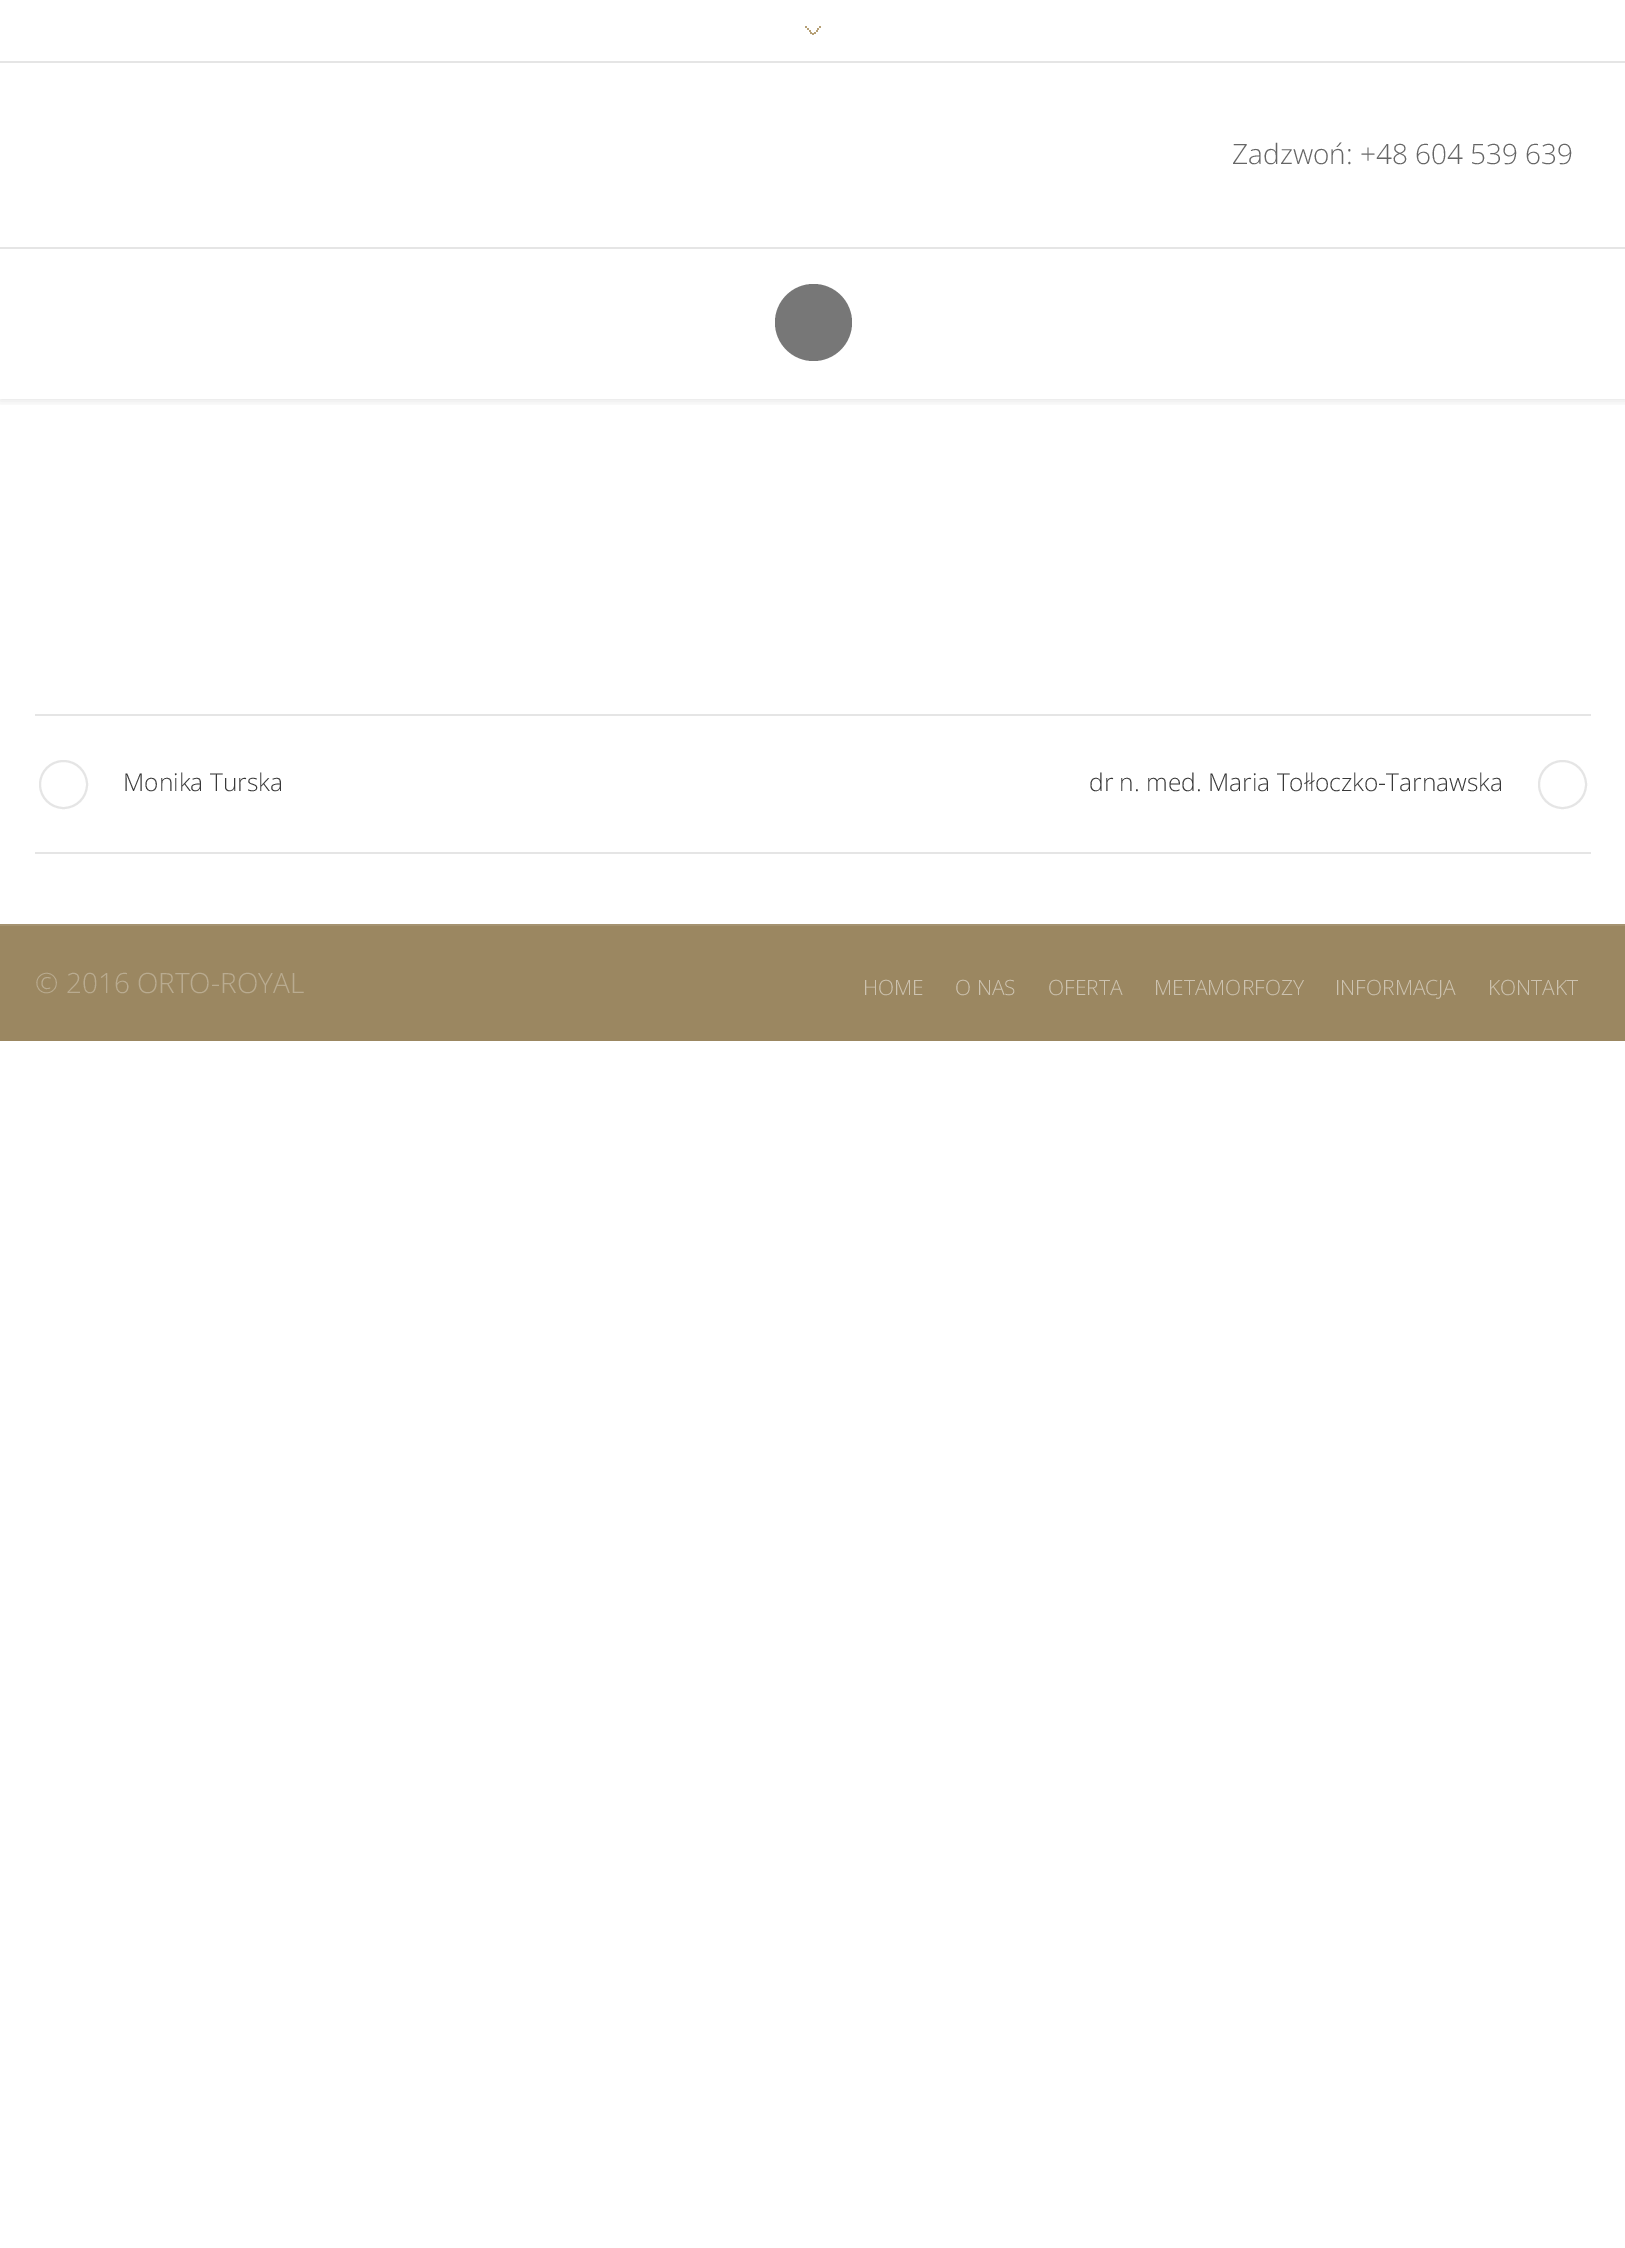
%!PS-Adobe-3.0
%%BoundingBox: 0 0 1625 2248
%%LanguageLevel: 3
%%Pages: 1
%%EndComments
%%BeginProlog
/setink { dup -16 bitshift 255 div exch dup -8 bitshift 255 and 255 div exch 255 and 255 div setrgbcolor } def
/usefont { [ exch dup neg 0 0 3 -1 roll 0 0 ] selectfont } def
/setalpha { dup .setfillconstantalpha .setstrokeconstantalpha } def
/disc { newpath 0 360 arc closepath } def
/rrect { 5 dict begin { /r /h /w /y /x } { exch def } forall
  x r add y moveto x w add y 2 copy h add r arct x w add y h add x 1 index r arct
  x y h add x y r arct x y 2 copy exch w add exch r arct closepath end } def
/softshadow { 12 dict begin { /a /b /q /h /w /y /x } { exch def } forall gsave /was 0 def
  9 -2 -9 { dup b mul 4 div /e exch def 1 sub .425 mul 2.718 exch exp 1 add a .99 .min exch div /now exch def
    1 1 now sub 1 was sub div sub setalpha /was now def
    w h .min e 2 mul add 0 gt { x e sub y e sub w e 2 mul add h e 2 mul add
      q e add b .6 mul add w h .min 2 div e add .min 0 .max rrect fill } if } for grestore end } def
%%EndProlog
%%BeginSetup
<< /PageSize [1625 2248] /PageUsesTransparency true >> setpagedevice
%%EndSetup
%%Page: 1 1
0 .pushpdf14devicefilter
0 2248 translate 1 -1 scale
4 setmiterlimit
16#FFFFFF setink
0 0 1625 2248 rectfill
gsave
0 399 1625 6 rectclip
16#000000 setink
0 2 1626 399 0 4.5 0.1 softshadow
grestore
[
    [0 61 1625 2 16#E5E5E5]
    [812 33 2 2 16#B6A076]
    [819 26 2 2 16#B6A076]
    [805 26 2 2 16#B6A076]
    [817 28 2 2 16#B6A076]
    [807 28 2 2 16#B6A076]
    [816 30 2 2 16#B6A076]
    [809 30 2 2 16#B6A076]
    [814 32 2 2 16#B6A076]
    [810 32 2 2 16#B6A076]
] { aload pop setink rectfill } forall
/OpenSans-Light 28 usefont
16#666666 setink
1232 164 moveto (Zadzwoń: +48 604 539 639) show
16#E5E5E5 setink
0 247 1625 2 rectfill
16#777777 setink
813.5 322.5 38.5 disc fill
16#E5E5E5 setink
35 714 1556 2 rectfill
35 852 1556 2 rectfill
2 setlinewidth
63.5 784.5 23.5 disc stroke
/OpenSans-Light 24.5 usefont
16#383838 setink
123 791 moveto (Monika Turska) show
1089 791 moveto (dr n. med. Maria Tołłoczko-Tarnawska) show
16#E5E5E5 setink
1562.5 784.5 23.5 disc stroke
16#9B8761 setink
0 926 1625 115 rectfill
16#A59371 setink
0 924 1625 2 rectfill
/OpenSans-Light 28 usefont
16#B9AB90 setink
35 993 moveto (© 2016 ORTO-ROYAL) show
/OpenSans-Light 21 usefont
16#CDC3B0 setink
[
    [(HOME) 863 995]
    [(O NAS) 955 995]
    [(OFERTA) 1048 995]
    [(METAMORFOZY) 1154 995]
    [(INFORMACJA) 1335 995]
    [(KONTAKT) 1488 995]
] { aload pop moveto show } forall
.poppdf14devicefilter showpage
%%EOF
